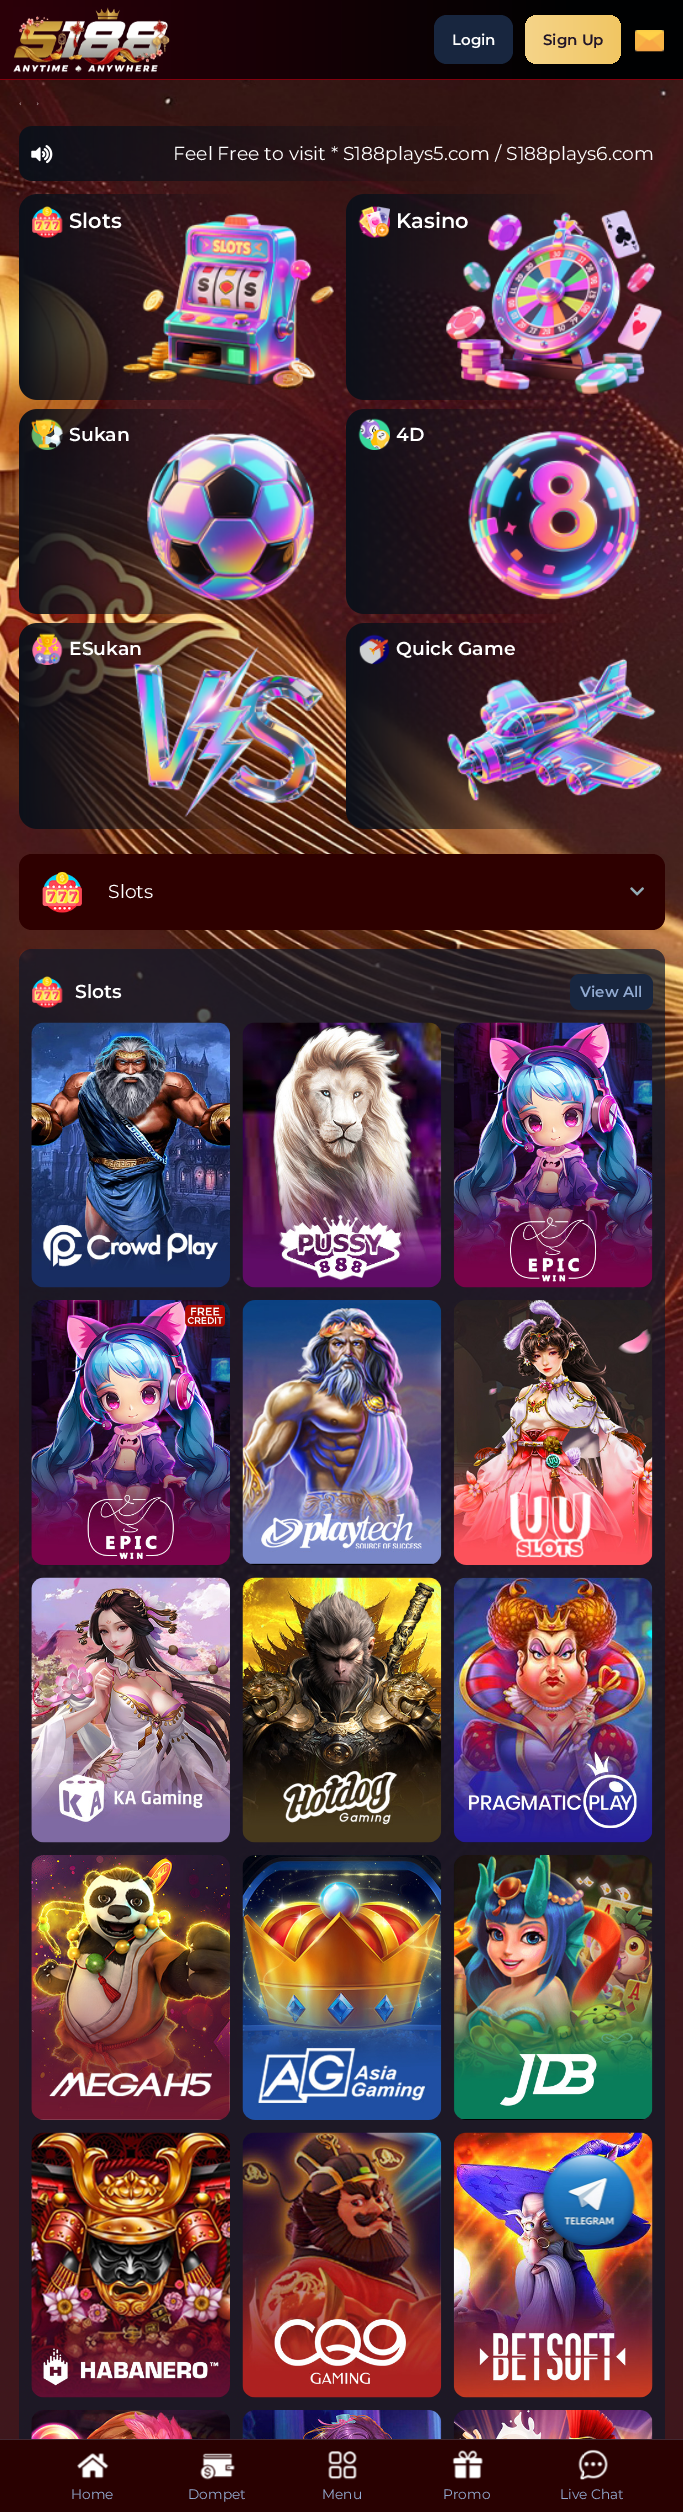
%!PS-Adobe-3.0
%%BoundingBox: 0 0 683 2512
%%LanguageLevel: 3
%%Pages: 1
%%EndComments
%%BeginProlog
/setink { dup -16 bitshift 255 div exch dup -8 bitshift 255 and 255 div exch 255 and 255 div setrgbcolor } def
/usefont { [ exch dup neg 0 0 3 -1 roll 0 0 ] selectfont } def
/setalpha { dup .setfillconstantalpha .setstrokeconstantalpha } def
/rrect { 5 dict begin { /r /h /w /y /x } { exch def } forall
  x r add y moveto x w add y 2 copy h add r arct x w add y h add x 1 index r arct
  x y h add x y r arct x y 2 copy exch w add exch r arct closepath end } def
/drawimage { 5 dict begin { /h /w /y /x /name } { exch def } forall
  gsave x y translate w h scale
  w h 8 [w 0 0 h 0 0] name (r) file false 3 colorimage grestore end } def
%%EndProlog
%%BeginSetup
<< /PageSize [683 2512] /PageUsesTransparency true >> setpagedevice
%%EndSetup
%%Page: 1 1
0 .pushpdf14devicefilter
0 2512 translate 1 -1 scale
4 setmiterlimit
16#FFFFFF setink
0 0 683 2512 rectfill
(img1.raw) 0 80 683 2359 drawimage
gsave 0 0 moveto 683 0 lineto 683 79 lineto 0 79 lineto closepath clip newpath
<< /ShadingType 2 /ColorSpace /DeviceRGB /Coords [0 39 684 39] /Extend [true true] /Function << /FunctionType 3 /Domain [0 1] /Functions [<< /FunctionType 2 /Domain [0 1] /C0 [0.173 0 0.035] /C1 [0 0.004 0.008] /N 1 >> << /FunctionType 2 /Domain [0 1] /C0 [0 0.004 0.008] /C1 [0 0.004 0.008] /N 1 >>] /Bounds [0.84] /Encode [0 1 0 1] >> >> shfill grestore
16#82000D setink
0 79 683 1 rectfill
(img2.raw) 13 7 157 66 drawimage
16#18263F setink
434 15 79 49 13 rrect fill
/Montserrat-SemiBold 15 usefont
16#FFFFFF setink
452 45 moveto (Login) show
gsave 525 15 96 49 13 rrect clip newpath
<< /ShadingType 2 /ColorSpace /DeviceRGB /Coords [525 39 621 39] /Extend [true true] /Function << /FunctionType 2 /Domain [0 1] /C0 [0.961 0.831 0.537] /C1 [0.945 0.776 0.388] /N 1 >> >> shfill grestore
16#211528 setink
543 45 moveto (Sign Up) show
(img3.raw) 635 30 29 22 drawimage
(img4.raw) 19 102 3 4 drawimage
(img5.raw) 36 102 3 4 drawimage
(img6.raw) 31 145 22 19 drawimage
/Montserrat-Regular 18.75 usefont
16#FFFFFF setink
173 160 moveto (Feel Free to visit * S188plays5.com / S188plays6.com) show
(img7.raw) 32 206 31 32 drawimage
/Montserrat-SemiBold 21 usefont
69 228 moveto (Slots) show
(img8.raw) 122 213 212 177 drawimage
(img9.raw) 358 206 32 32 drawimage
(img10.raw) 446 210 216 184 drawimage
396 228 moveto (Kasino) show
(img11.raw) 31 418 32 32 drawimage
/Montserrat-SemiBold 18.75 usefont
69 441 moveto (Sukan) show
(img12.raw) 147 433 168 169 drawimage
(img13.raw) 358 418 32 32 drawimage
396 441 moveto (4D) show
(img14.raw) 468 430 173 171 drawimage
(img15.raw) 32 633 31 32 drawimage
(img16.raw) 133 646 191 172 drawimage
69 655 moveto (ESukan) show
(img17.raw) 359 634 31 31 drawimage
396 655 moveto (Quick Game) show
(img18.raw) 447 658 215 143 drawimage
16#2E0000 setink
19 854 646 76 13 rrect fill
(img19.raw) 42 872 40 41 drawimage
/Montserrat-Regular 18.75 usefont
16#FFFFFF setink
108 898 moveto (Slots) show
(img20.raw) 630 887 14 9 drawimage
0.7 setalpha
16#0F1829 setink
19 949 646 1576 13 rrect fill
1 setalpha
(img21.raw) 32 976 31 32 drawimage
/Montserrat-SemiBold 18.75 usefont
16#FFFFFF setink
75 998 moveto (Slots) show
16#18263F setink
570 974 83 36 10 rrect fill
/Montserrat-SemiBold 15 usefont
16#93ACD3 setink
580 997 moveto (View All) show
(img22.raw) 31 1022 199 266 drawimage
(img23.raw) 242 1022 200 266 drawimage
(img24.raw) 453 1022 200 266 drawimage
(img25.raw) 31 1300 199 265 drawimage
(img26.raw) 242 1300 200 265 drawimage
(img27.raw) 453 1300 200 265 drawimage
(img28.raw) 31 1577 199 266 drawimage
(img29.raw) 242 1577 200 266 drawimage
(img30.raw) 453 1577 200 266 drawimage
(img31.raw) 31 1855 199 265 drawimage
(img32.raw) 242 1855 200 265 drawimage
(img33.raw) 453 1855 200 265 drawimage
(img34.raw) 31 2132 199 266 drawimage
(img35.raw) 242 2132 200 266 drawimage
(img36.raw) 453 2132 200 266 drawimage
(img37.raw) 31 2410 199 29 drawimage
(img38.raw) 242 2410 200 29 drawimage
(img39.raw) 453 2410 200 29 drawimage
(img40.raw) 542 2154 94 92 drawimage
16#290101 setink
0 2440 683 72 rectfill
16#412831 setink
0 2439 683 1 rectfill
(img41.raw) 77 2453 32 26 drawimage
/Montserrat-Regular 13.75 usefont
16#93ACD3 setink
71 2499 moveto (Home) show
(img42.raw) 200 2453 35 27 drawimage
188 2499 moveto (Dompet) show
(img43.raw) 328 2451 29 29 drawimage
322 2499 moveto (Menu) show
(img44.raw) 452 2450 31 29 drawimage
443 2499 moveto (Promo) show
(img45.raw) 578 2449 30 31 drawimage
560 2499 moveto (Live Chat) show
.poppdf14devicefilter showpage
%%EOF
